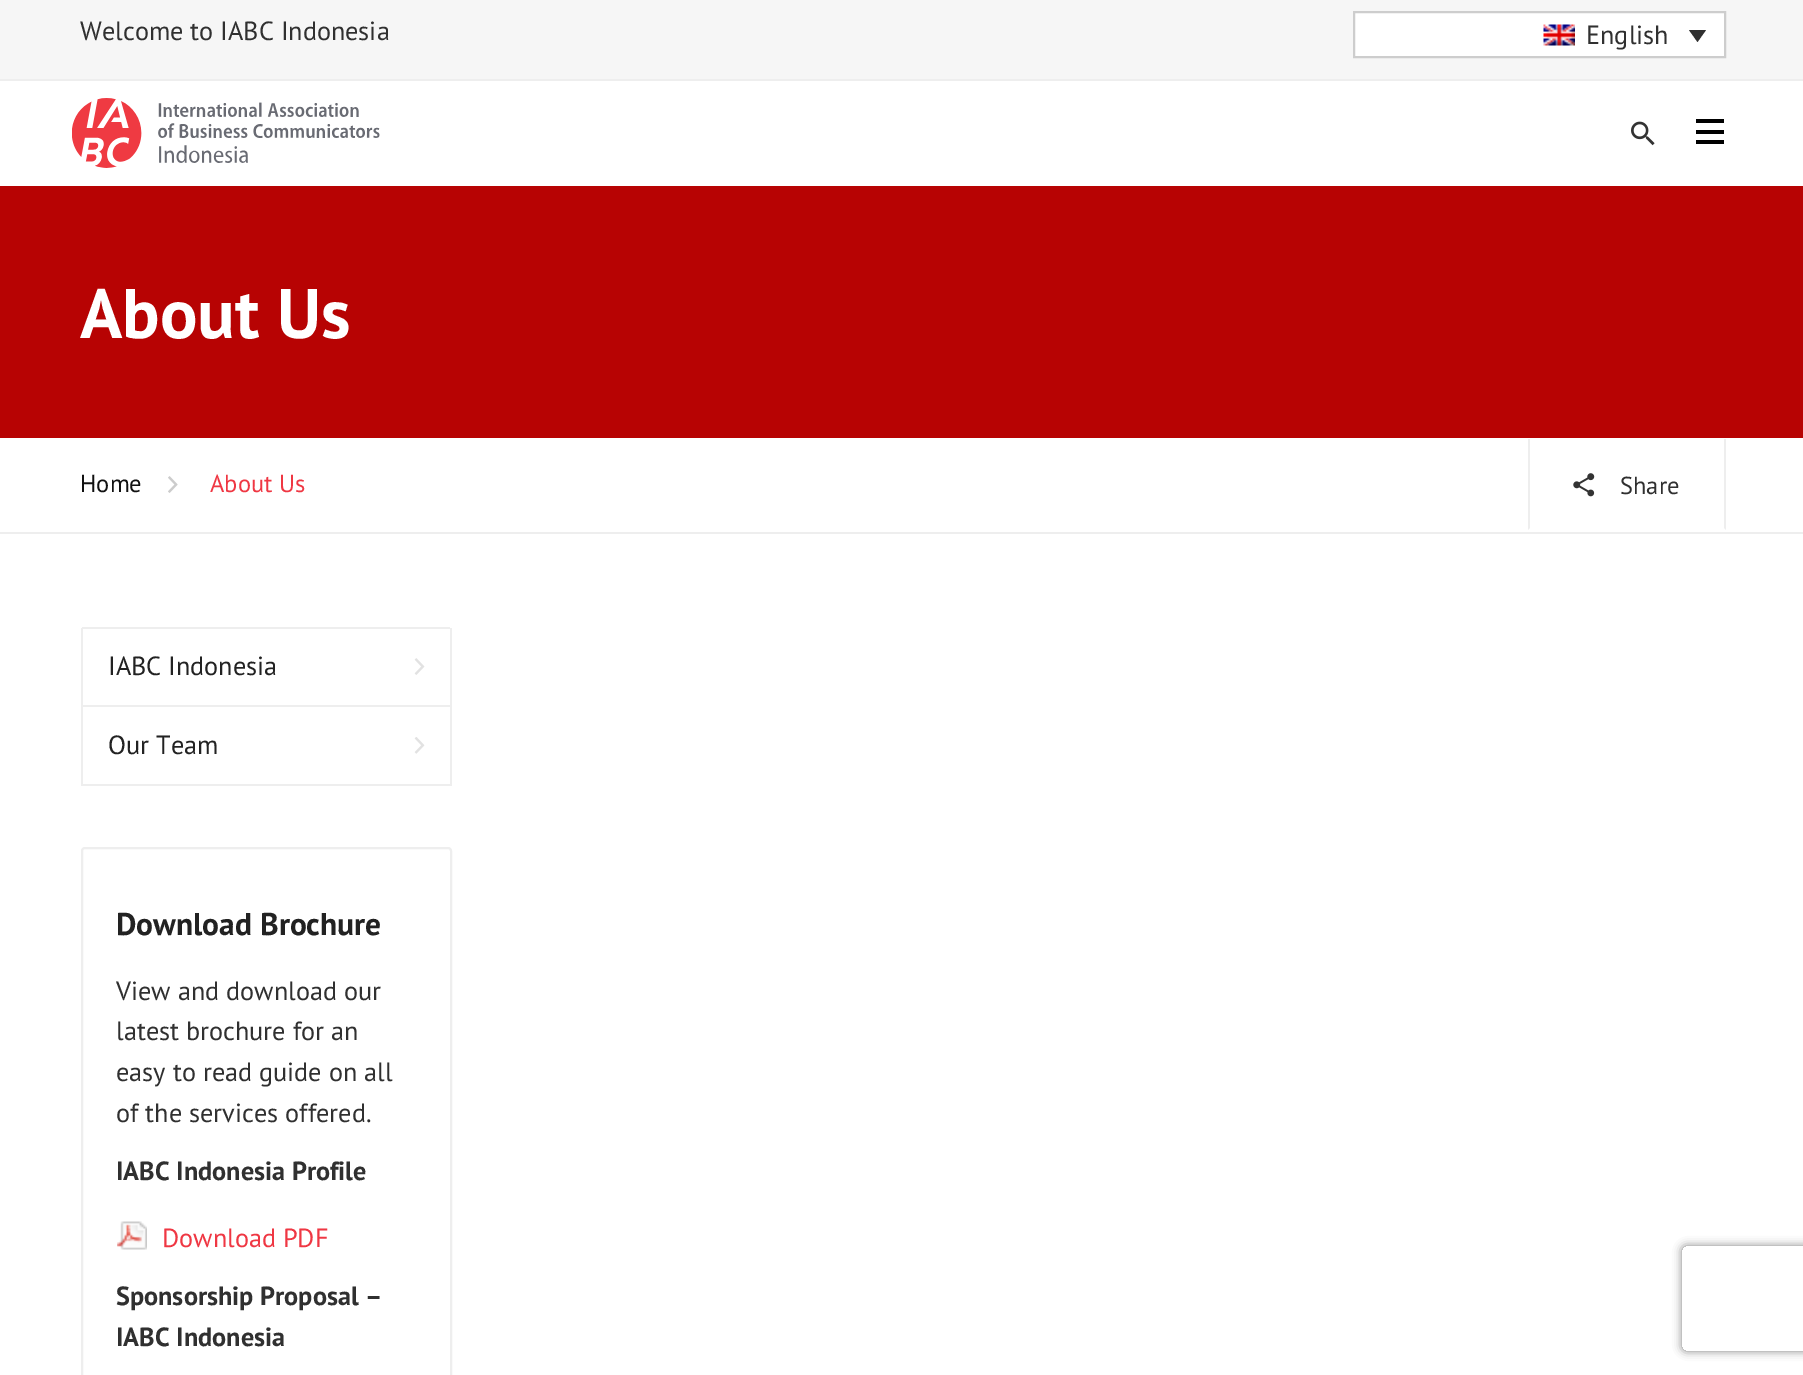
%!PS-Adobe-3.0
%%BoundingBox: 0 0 1803 1375
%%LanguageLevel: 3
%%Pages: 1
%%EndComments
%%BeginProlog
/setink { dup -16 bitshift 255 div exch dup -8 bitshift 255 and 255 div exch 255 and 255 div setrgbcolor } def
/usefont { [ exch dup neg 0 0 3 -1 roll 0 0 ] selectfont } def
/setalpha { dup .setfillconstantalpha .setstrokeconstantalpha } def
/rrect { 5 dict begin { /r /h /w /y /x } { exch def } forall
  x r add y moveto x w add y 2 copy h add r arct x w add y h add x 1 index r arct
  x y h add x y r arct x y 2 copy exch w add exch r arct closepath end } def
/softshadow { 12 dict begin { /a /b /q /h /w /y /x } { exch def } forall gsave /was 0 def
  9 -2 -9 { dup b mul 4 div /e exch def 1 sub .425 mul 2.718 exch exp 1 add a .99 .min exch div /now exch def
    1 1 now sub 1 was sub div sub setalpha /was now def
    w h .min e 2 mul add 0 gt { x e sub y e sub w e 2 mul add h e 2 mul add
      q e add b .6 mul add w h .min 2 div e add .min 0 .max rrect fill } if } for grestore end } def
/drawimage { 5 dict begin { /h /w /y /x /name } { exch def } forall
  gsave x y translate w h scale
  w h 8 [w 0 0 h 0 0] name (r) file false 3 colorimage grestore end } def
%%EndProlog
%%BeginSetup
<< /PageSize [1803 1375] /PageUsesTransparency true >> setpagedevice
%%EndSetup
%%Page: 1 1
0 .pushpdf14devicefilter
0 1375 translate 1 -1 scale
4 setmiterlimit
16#FFFFFF setink
0 0 1803 1375 rectfill
16#F6F6F6 setink
0 0 1803 79 rectfill
16#EEEEEE setink
0 79 1803 2 rectfill
/PTSans-Regular 26.25 usefont
16#303030 setink
80 40 moveto (Welcome to IABC Indonesia) show
16#FFFFFF setink
1354 12 moveto 1725 12 lineto 1725 57 lineto 1354 57 lineto closepath gsave fill grestore
16#CDCDCD setink
2 setlinewidth
stroke
(img1.raw) 1543 24 32 22 drawimage
16#303030 setink
1586 44 moveto (English) show
1689 30 moveto 1706 30 lineto 1697.5 42 lineto closepath fill
(img2.raw) 72 98 308 70 drawimage
(img3.raw) 1631 121 24 25 drawimage
[
    [1696 119 28 4 16#000000]
    [1696 130 28 4 16#000000]
    [1696 140 28 4 16#000000]
    [0 186 1803 252 16#B70303]
] { aload pop setink rectfill } forall
/PTSans-Bold 70 usefont
16#FFFFFF setink
80 338 moveto (About Us) show
16#EEEEEE setink
0 532 1803 2 rectfill
/PTSans-Regular 24.5 usefont
16#111111 setink
80 492 moveto (Home) show
(img4.raw) 168 476 10 17 drawimage
16#EF3743 setink
210 492 moveto (About Us) show
16#EEEEEE setink
1726 439 moveto 1726 530 lineto 1724 528 lineto 1724 439 lineto closepath fill
1528 530 moveto 1528 439 lineto 1530 439 lineto 1530 528 lineto closepath fill
(img5.raw) 1573 473 22 24 drawimage
16#303030 setink
1620 494 moveto (Share) show
[
    [82 627 368 2 16#EEEEEE]
    [450 628 2 158 16#EEEEEE]
    [81 705 371 2 16#EEEEEE]
    [81 628 2 79 16#EEEEEE]
] { aload pop setink rectfill } forall
/PTSans-Regular 26.25 usefont
16#222222 setink
108 675 moveto (IABC Indonesia) show
(img6.raw) 414 658 11 17 drawimage
16#EEEEEE setink
81 784 371 2 rectfill
81 707 2 79 rectfill
16#222222 setink
108 754 moveto (Our Team) show
(img7.raw) 414 737 11 17 drawimage
16#EEEEEE setink
82 848 369 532 3 rrect stroke
/PTSans-Bold 31.5 usefont
16#222222 setink
116 935 moveto (Download Brochure) show
/PTSans-Regular 26.25 usefont
16#303030 setink
[
    [(View and download our) 116 1000]
    [(latest brochure for an) 116 1040]
    [(easy to read guide on all) 116 1081]
    [(of the services offered.) 116 1122]
] { aload pop moveto show } forall
/PTSans-Bold 26.25 usefont
116 1180 moveto (IABC Indonesia Profile) show
(img8.raw) 117 1221 30 29 drawimage
/PTSans-Regular 26.25 usefont
16#EF3743 setink
162 1247 moveto (Download PDF) show
/PTSans-Bold 26.25 usefont
16#303030 setink
116 1305 moveto (Sponsorship Proposal –) show
116 1346 moveto (IABC Indonesia) show
gsave
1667 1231 moveto 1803 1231 lineto 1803 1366 lineto 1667 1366 lineto closepath 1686 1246 moveto 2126 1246 lineto 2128 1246 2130 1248 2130 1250 curveto 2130 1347 lineto 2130 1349 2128 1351 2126 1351 curveto 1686 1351 lineto 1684 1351 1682 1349 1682 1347 curveto 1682 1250 lineto 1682 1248 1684 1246 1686 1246 curveto closepath eoclip newpath
16#808080 setink
1682 1246 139 105 4 4.5 1 softshadow
grestore
.poppdf14devicefilter showpage
%%EOF
